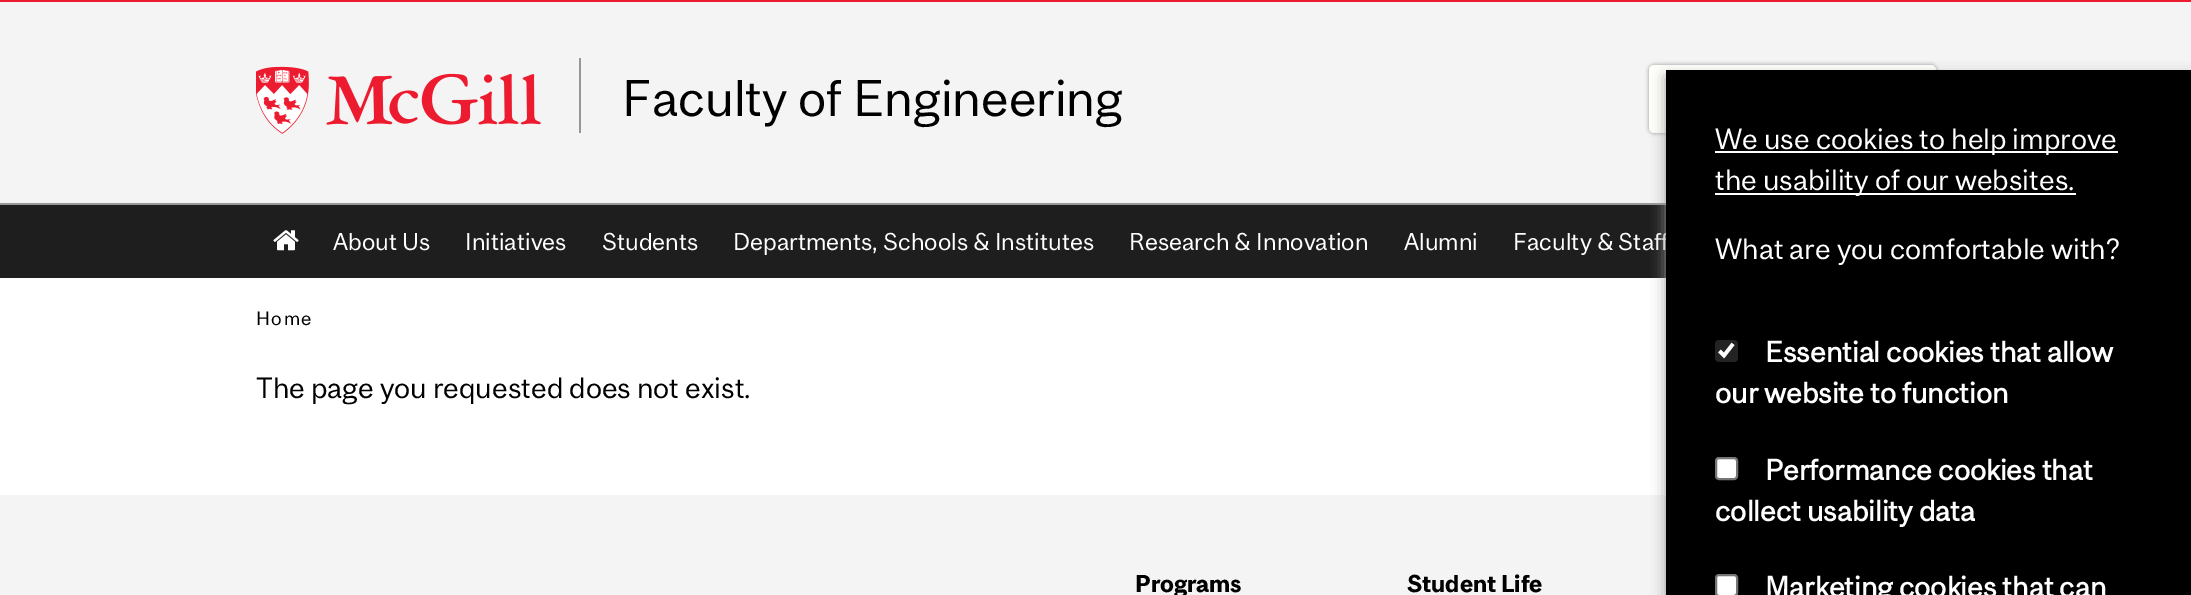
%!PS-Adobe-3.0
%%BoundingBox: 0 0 2191 595
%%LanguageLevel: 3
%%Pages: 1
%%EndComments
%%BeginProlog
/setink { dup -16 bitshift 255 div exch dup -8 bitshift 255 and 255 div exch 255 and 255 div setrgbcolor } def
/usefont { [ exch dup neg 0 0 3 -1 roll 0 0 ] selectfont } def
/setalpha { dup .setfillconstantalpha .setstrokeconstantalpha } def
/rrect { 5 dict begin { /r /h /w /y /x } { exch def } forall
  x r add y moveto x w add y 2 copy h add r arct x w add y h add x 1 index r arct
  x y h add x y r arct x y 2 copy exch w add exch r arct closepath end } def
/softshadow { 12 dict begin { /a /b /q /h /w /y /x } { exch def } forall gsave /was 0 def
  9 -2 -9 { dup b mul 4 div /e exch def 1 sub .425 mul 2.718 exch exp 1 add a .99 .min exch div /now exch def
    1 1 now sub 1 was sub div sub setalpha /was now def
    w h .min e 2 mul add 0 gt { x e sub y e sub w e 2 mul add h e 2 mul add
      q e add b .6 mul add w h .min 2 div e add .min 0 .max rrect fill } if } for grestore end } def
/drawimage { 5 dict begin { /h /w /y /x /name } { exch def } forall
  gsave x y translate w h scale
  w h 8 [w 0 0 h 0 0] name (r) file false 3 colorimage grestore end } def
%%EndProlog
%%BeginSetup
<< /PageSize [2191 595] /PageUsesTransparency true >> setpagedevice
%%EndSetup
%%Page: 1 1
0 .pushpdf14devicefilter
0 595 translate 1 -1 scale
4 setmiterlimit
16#FFFFFF setink
0 0 2191 595 rectfill
[
    [0 2 2191 201 16#F4F4F4]
    [0 0 2191 2 16#ED1B2F]
    [0 203 1666 2 16#979797]
] { aload pop setink rectfill } forall
(img1.raw) 256 66 285 68 drawimage
579 58 2 75 rectfill
/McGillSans-Regular 48 usefont
16#000000 setink
622 116 moveto (Faculty of Engineering) show
1649 65 287 68 5 2 0.4 softshadow
16#FFFFFC setink
1649 65 287 68 5 rrect fill
16#1E1E1E setink
0 205 1666 73 rectfill
(img2.raw) 273 230 26 21 drawimage
/McGillSans-Regular 22.75 usefont
16#FFFFFF setink
[
    [(About Us) 333 250]
    [(Initiatives) 465 250]
    [(Students) 602 250]
    [(Departments, Schools & Institutes) 733 250]
    [(Research & Innovation) 1129 250]
    [(Alumni) 1404 250]
    [(Faculty & Staff) 1513 250]
] { aload pop moveto show } forall
16#F4F4F4 setink
0 495 1666 100 rectfill
16#979799 setink
1666 77 525 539 0 7 1 softshadow
16#000000 setink
1666 70 525 525 rectfill
16#FFFFFF setink
1715 151 403 2 rectfill
/McGillSans-Regular 27.4 usefont
1715 149 moveto (We use cookies to help improve) show
1715 193 361 2 rectfill
1715 190 moveto (the usability of our websites.) show
1715 259 moveto (What are you comfortable with?) show
16#232323 setink
1715 340 23 22 4 rrect fill
16#FFFFFF setink
3.6 setlinewidth
1719.5 351 moveto 1724 355.5 lineto 1733 344 lineto stroke
/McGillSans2-Bold 27.4 usefont
1765 362 moveto (Essential cookies that allow) show
1715 403 moveto (our website to function) show
1716 458 21 21 3 rrect gsave fill grestore
16#767676 setink
2 setlinewidth
stroke
16#FFFFFF setink
1765 480 moveto (Performance cookies that) show
1715 521 moveto (collect usability data) show
1716 575 21 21 3 rrect gsave fill grestore
16#767676 setink
stroke
16#FFFFFF setink
1765 597 moveto (Marketing cookies that can) show
/McGillSans-Regular 18 usefont
16#000000 setink
256 325 moveto 1.5 0 (Home) ashow
/McGillSans-Regular 27.4 usefont
256 398 moveto (The page you requested does not exist.) show
/McGillSans-Bold 22.75 usefont
1135 592 moveto (Programs) show
1407 592 moveto (Student Life) show
.poppdf14devicefilter showpage
%%EOF
